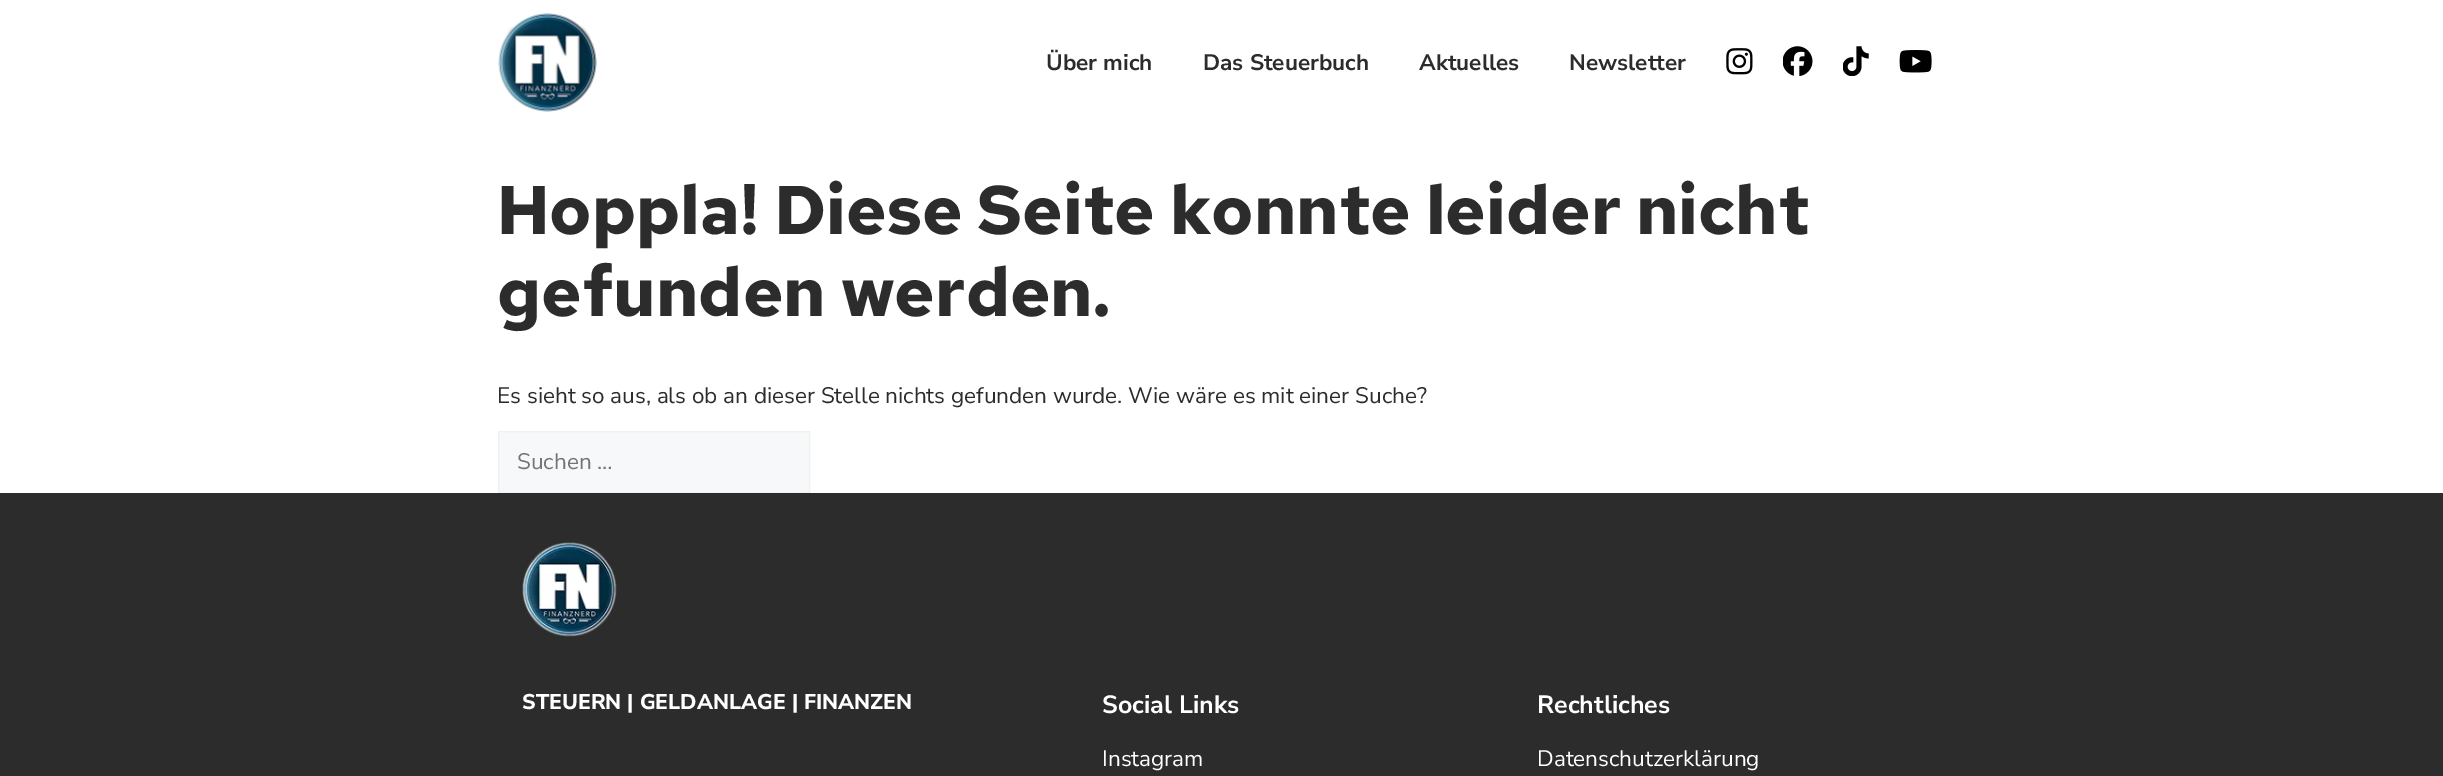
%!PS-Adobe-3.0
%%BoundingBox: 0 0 2443 776
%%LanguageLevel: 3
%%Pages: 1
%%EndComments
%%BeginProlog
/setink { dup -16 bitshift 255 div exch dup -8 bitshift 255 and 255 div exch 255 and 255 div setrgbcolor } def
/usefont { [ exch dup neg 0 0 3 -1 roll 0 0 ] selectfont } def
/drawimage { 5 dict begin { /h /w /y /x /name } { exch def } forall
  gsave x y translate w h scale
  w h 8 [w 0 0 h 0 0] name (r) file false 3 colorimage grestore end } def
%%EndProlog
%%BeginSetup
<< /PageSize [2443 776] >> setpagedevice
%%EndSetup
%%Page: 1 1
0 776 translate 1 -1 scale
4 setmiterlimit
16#FFFFFF setink
0 0 2443 776 rectfill
(img1.raw) 498 13 99 99 drawimage
/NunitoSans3-ExtraLight 22.5 usefont
16#2C2C2C setink
[
    [(Über mich) 1046 70]
    [(Das Steuerbuch) 1203 70]
    [(Aktuelles) 1419 70]
    [(Newsletter) 1569 70]
] { aload pop moveto show } forall
(img2.raw) 1726 48 27 27 drawimage
(img3.raw) 1783 46 30 30 drawimage
(img4.raw) 1843 46 26 30 drawimage
(img5.raw) 1899 50 33 23 drawimage
/RedHatText-Bold 68.75 usefont
497 234 moveto (Hoppla! Diese Seite konnte leider nicht) show
497 316 moveto (gefunden werden.) show
/NunitoSans-ExtraLight 22.5 usefont
497 403 moveto (Es sieht so aus, als ob an dieser Stelle nichts gefunden wurde. Wie wäre es mit einer Suche?) show
16#F7F8F9 setink
498.5 431.5 moveto 809.5 431.5 lineto 809.5 492.5 lineto 498.5 492.5 lineto closepath gsave fill grestore
16#F0F0F0 setink
stroke
16#757575 setink
517 469 moveto (Suchen …) show
16#2C2C2C setink
0 493 2443 283 rectfill
(img6.raw) 522 542 95 95 drawimage
/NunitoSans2-ExtraLight 21.25 usefont
16#FFFFFF setink
522 709 moveto (STEUERN | GELDANLAGE | FINANZEN) show
/NunitoSans3-ExtraLight 25 usefont
1102 713 moveto (Social Links) show
/NunitoSans-ExtraLight 22.5 usefont
1102 766 moveto (Instagram) show
/NunitoSans3-ExtraLight 25 usefont
1537 713 moveto (Rechtliches) show
/NunitoSans-ExtraLight 22.5 usefont
1537 766 moveto (Datenschutzerklärung) show
showpage
%%EOF
